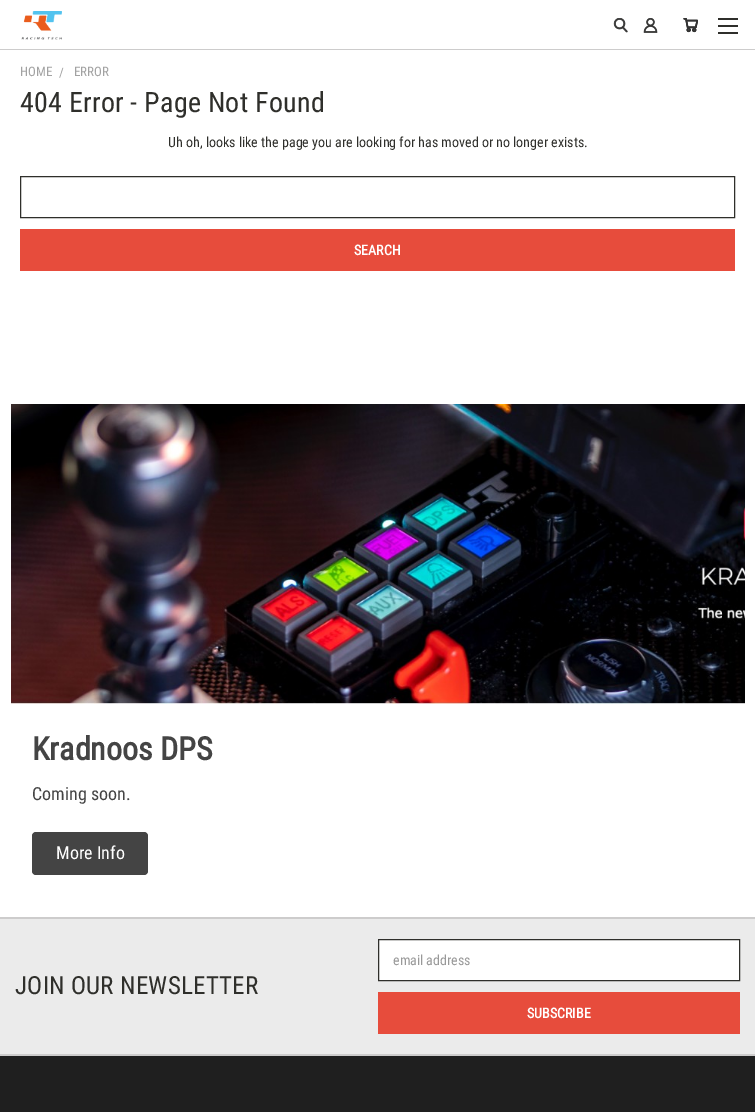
%!PS-Adobe-3.0
%%BoundingBox: 0 0 755 1112
%%LanguageLevel: 3
%%Pages: 1
%%EndComments
%%BeginProlog
/setink { dup -16 bitshift 255 div exch dup -8 bitshift 255 and 255 div exch 255 and 255 div setrgbcolor } def
/usefont { [ exch dup neg 0 0 3 -1 roll 0 0 ] selectfont } def
/rrect { 5 dict begin { /r /h /w /y /x } { exch def } forall
  x r add y moveto x w add y 2 copy h add r arct x w add y h add x 1 index r arct
  x y h add x y r arct x y 2 copy exch w add exch r arct closepath end } def
/drawimage { 5 dict begin { /h /w /y /x /name } { exch def } forall
  gsave x y translate w h scale
  w h 8 [w 0 0 h 0 0] name (r) file false 3 colorimage grestore end } def
%%EndProlog
%%BeginSetup
<< /PageSize [755 1112] >> setpagedevice
%%EndSetup
%%Page: 1 1
0 1112 translate 1 -1 scale
4 setmiterlimit
16#FFFFFF setink
0 0 755 1112 rectfill
16#CDCCCC setink
0 49 755 1 rectfill
(img1.raw) 21 11 41 29 drawimage
(img2.raw) 613 18 15 15 drawimage
(img3.raw) 643 18 15 15 drawimage
(img4.raw) 683 18 15 15 drawimage
[
    [718 25 20 2 16#2F2F2B]
    [718 18 20 2 16#2F2F2B]
    [718 32 20 2 16#2F2F2B]
] { aload pop setink rectfill } forall
/RobotoCondensed-Regular 13 usefont
16#A2A2A2 setink
[
    [(HOME) 20 76]
    [(/) 59 77]
    [(ERROR) 74 76]
] { aload pop moveto show } forall
/RobotoCondensed-Regular 28 usefont
16#2F2F2B setink
20 112 moveto 0.25 0 (404 Error - Page Not Found) ashow
/RobotoCondensed-Regular 14 usefont
168 147 moveto (Uh oh, looks like the page you are looking for has moved or no longer exists.) show
20.5 176.5 714 41 rectstroke
16#E74C3C setink
20 229 715 42 rectfill
/RobotoCondensed-Bold 14 usefont
16#FFFFFF setink
354 255 moveto (SEARCH) show
(img5.raw) 11 404 734 300 drawimage
/RobotoCondensed-Bold 32 usefont
16#444444 setink
32 760 moveto (Kradnoos DPS) show
/RobotoCondensed-Regular 18 usefont
32 800 moveto (Coming soon.) show
32 832 116 43 4 rrect fill
16#FFFFFF setink
56 859 moveto (More Info) show
16#EBEBEB setink
0 919 755 135 rectfill
16#CDCCCC setink
0 917 755 2 rectfill
/RobotoCondensed-Regular 25 usefont
16#2F2F2B setink
15 994 moveto 0.25 0 (JOIN OUR NEWSLETTER) ashow
16#FFFFFF setink
378.5 939.5 moveto 739.5 939.5 lineto 739.5 980.5 lineto 378.5 980.5 lineto closepath gsave fill grestore
16#2F2F2B setink
stroke
/RobotoCondensed-Regular 14 usefont
16#999999 setink
393 965 moveto (email address) show
16#E74C3C setink
378 992 362 42 rectfill
/RobotoCondensed-Bold 14 usefont
16#FFFFFF setink
527 1018 moveto (SUBSCRIBE) show
16#1F1F1F setink
0 1056 755 56 rectfill
16#CDCCCC setink
0 1054 755 2 rectfill
showpage
%%EOF
